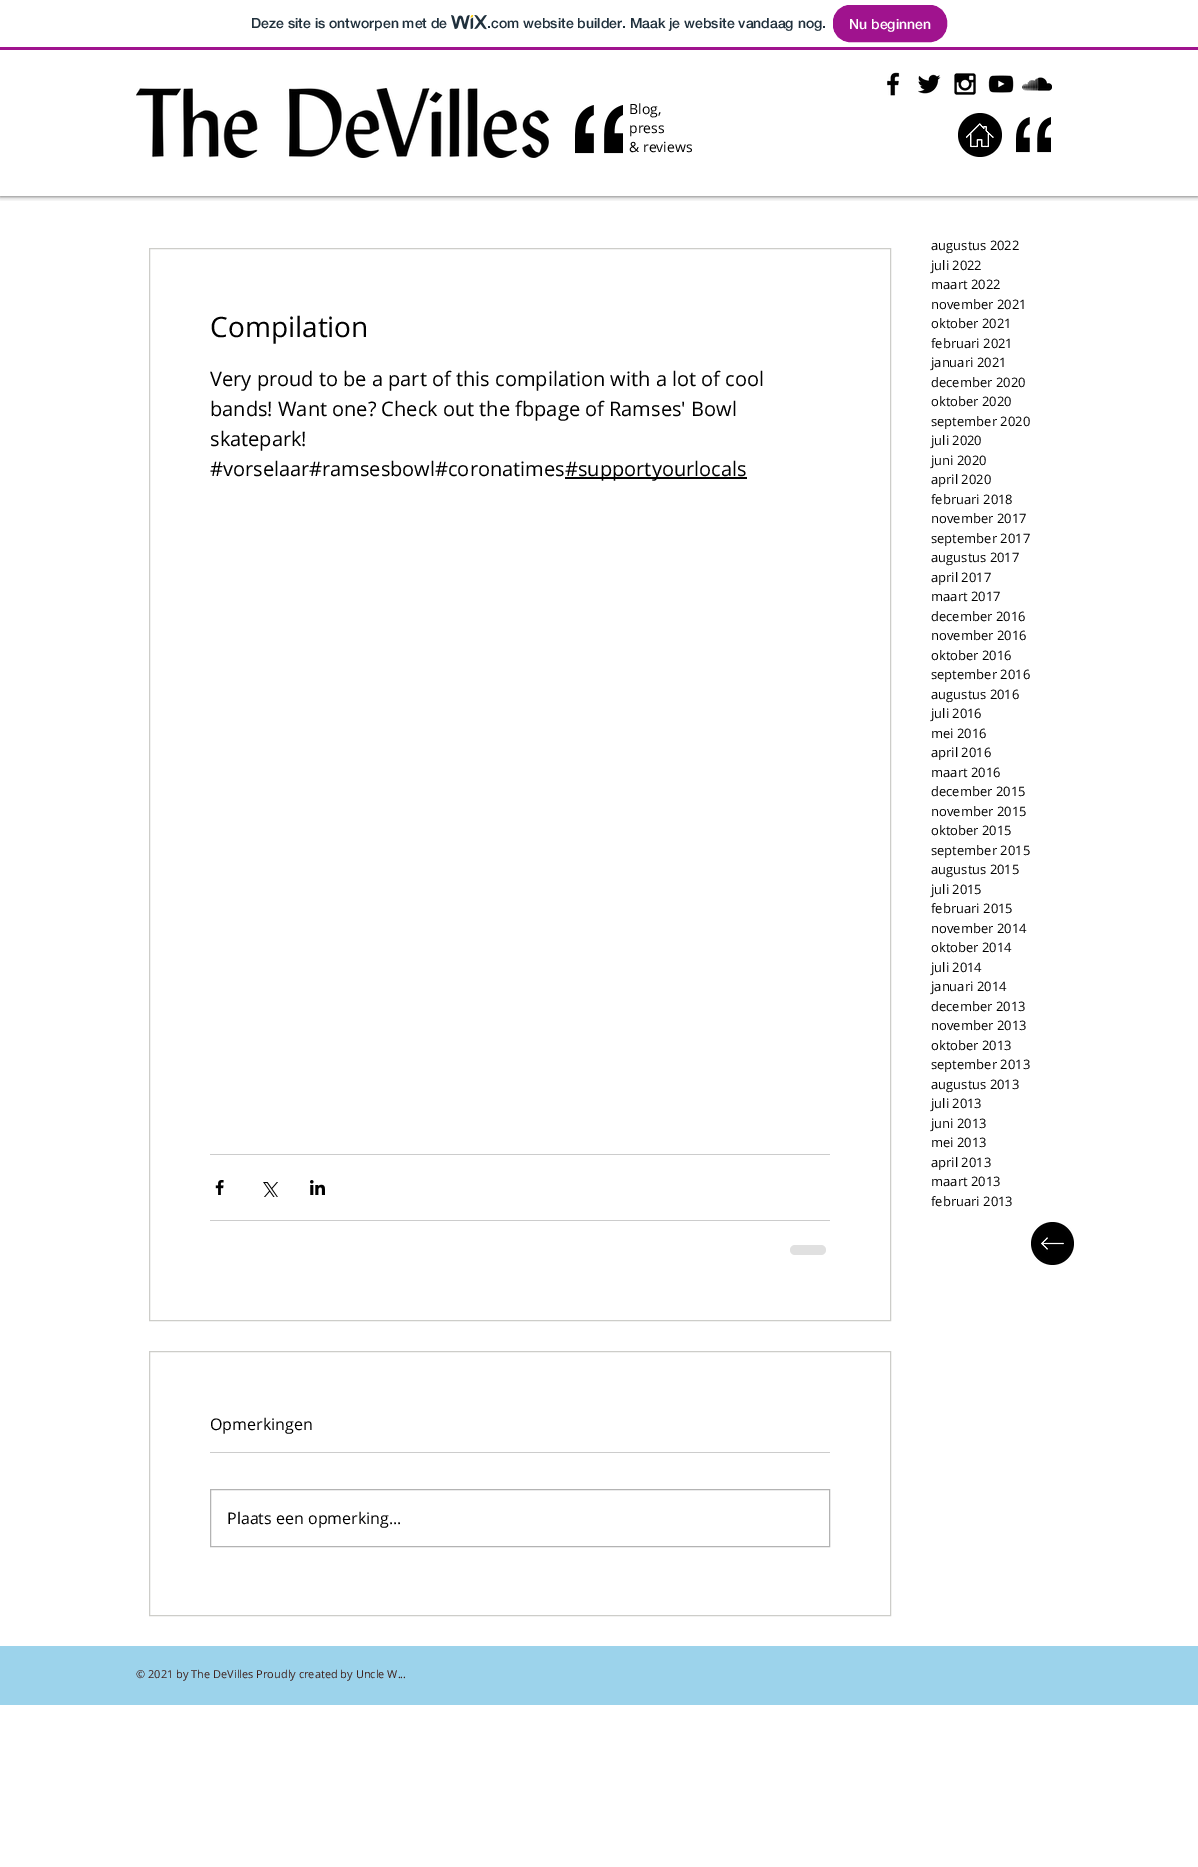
%!PS-Adobe-3.0
%%BoundingBox: 0 0 1198 1867
%%LanguageLevel: 3
%%Pages: 1
%%EndComments
%%BeginProlog
/setink { dup -16 bitshift 255 div exch dup -8 bitshift 255 and 255 div exch 255 and 255 div setrgbcolor } def
/usefont { [ exch dup neg 0 0 3 -1 roll 0 0 ] selectfont } def
/setalpha { dup .setfillconstantalpha .setstrokeconstantalpha } def
/rrect { 5 dict begin { /r /h /w /y /x } { exch def } forall
  x r add y moveto x w add y 2 copy h add r arct x w add y h add x 1 index r arct
  x y h add x y r arct x y 2 copy exch w add exch r arct closepath end } def
/softshadow { 12 dict begin { /a /b /q /h /w /y /x } { exch def } forall gsave /was 0 def
  9 -2 -9 { dup b mul 4 div /e exch def 1 sub .425 mul 2.718 exch exp 1 add a .99 .min exch div /now exch def
    1 1 now sub 1 was sub div sub setalpha /was now def
    w h .min e 2 mul add 0 gt { x e sub y e sub w e 2 mul add h e 2 mul add
      q e add b .6 mul add w h .min 2 div e add .min 0 .max rrect fill } if } for grestore end } def
/drawimage { 5 dict begin { /h /w /y /x /name } { exch def } forall
  gsave x y translate w h scale
  w h 8 [w 0 0 h 0 0] name (r) file false 3 colorimage grestore end } def
%%EndProlog
%%BeginSetup
<< /PageSize [1198 1867] /PageUsesTransparency true >> setpagedevice
%%EndSetup
%%Page: 1 1
0 .pushpdf14devicefilter
0 1867 translate 1 -1 scale
4 setmiterlimit
16#FFFFFF setink
0 0 1198 1867 rectfill
gsave
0 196 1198 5 rectclip
16#000000 setink
0 50 1198 146 0 2.5 0.7 softshadow
grestore
0 45 1198 2 rectfill
16#A0138E setink
0 47 1198 3 rectfill
/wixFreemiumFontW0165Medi-Medium 14 usefont
16#20303C setink
251 28 moveto (Deze site is ontworpen met de) show
(img1.raw) 451 15 36 15 drawimage
487 28 moveto (.com website builder. Maak je website vandaag nog.) show
16#A0138E setink
833.5 5.5 113 36 16.5 rrect gsave fill grestore
stroke
16#FFFFFF setink
849 29 moveto (Nu beginnen) show
(img2.raw) 887 72 13 24 drawimage
(img3.raw) 918 74 23 20 drawimage
(img4.raw) 954 73 22 22 drawimage
(img5.raw) 988 75 26 18 drawimage
(img6.raw) 1022 77 30 14 drawimage
(img7.raw) 136 88 413 70 drawimage
(img8.raw) 575 105 48 49 drawimage
/OpenSans-Regular 14 usefont
16#000000 setink
[
    [(Blog,) 629 114]
    [(press) 629 133]
    [(& reviews) 629 152]
] { aload pop moveto show } forall
(img9.raw) 958 113 44 44 drawimage
(img10.raw) 1016 117 35 36 drawimage
16#CDCDC9 setink
149.5 248.5 741 1072 rectstroke
/OpenSans-Regular 28 usefont
16#000000 setink
210 337 moveto (Compilation) show
/OpenSans-Regular 20 usefont
[
    [(Very proud to be a part of this compilation with a lot of cool) 210 386]
    [(bands! Want one? Check out the fbpage of Ramses' Bowl) 210 416]
    [(skatepark!) 210 446]
    [(#vorselaar) 210 476]
] { aload pop moveto show } forall
16#FFFFFF setink
309 465 1 1 rectfill
16#000000 setink
309 476 moveto (#ramsesbowl#coronatimes) show
16#050505 setink
565 477 182 2 rectfill
16#000000 setink
565 476 moveto (#supportyourlocals) show
16#CCCCCC setink
210 1154 620 1 rectfill
(img11.raw) 215 1180 9 15 drawimage
(img12.raw) 263 1182 15 15 drawimage
(img13.raw) 310 1180 15 15 drawimage
210 1220 620 1 rectfill
16#E0E0E0 setink
790 1245 36 10 5 rrect fill
16#CDCDC9 setink
149.5 1351.5 741 264 rectstroke
/OpenSans-Regular 16 usefont
16#000000 setink
210 1430 moveto (Opmerkingen) show
16#CCCCCC setink
210 1452 620 1 rectfill
16#B3B3B3 setink
210.5 1489.5 619 57 rectstroke
16#000000 setink
227 1524 moveto (Plaats een opmerking...) show
/OpenSans-Regular 13 usefont
[
    [(augustus 2022) 931 250]
    [(juli 2022) 931 270]
    [(maart 2022) 931 289]
    [(november 2021) 931 309]
    [(oktober 2021) 931 328]
    [(februari 2021) 931 348]
    [(januari 2021) 931 367]
    [(december 2020) 931 387]
    [(oktober 2020) 931 406]
    [(september 2020) 931 426]
    [(juli 2020) 931 445]
    [(juni 2020) 931 465]
    [(april 2020) 931 484]
    [(februari 2018) 931 504]
    [(november 2017) 931 523]
    [(september 2017) 931 543]
    [(augustus 2017) 931 562]
    [(april 2017) 931 582]
    [(maart 2017) 931 601]
    [(december 2016) 931 621]
    [(november 2016) 931 640]
    [(oktober 2016) 931 660]
    [(september 2016) 931 679]
    [(augustus 2016) 931 699]
    [(juli 2016) 931 718]
    [(mei 2016) 931 738]
    [(april 2016) 931 757]
    [(maart 2016) 931 777]
    [(december 2015) 931 796]
    [(november 2015) 931 816]
    [(oktober 2015) 931 835]
    [(september 2015) 931 855]
    [(augustus 2015) 931 874]
    [(juli 2015) 931 894]
    [(februari 2015) 931 913]
    [(november 2014) 931 933]
    [(oktober 2014) 931 952]
    [(juli 2014) 931 972]
    [(januari 2014) 931 991]
    [(december 2013) 931 1011]
    [(november 2013) 931 1030]
    [(oktober 2013) 931 1050]
    [(september 2013) 931 1069]
    [(augustus 2013) 931 1089]
    [(juli 2013) 931 1108]
    [(juni 2013) 931 1128]
    [(mei 2013) 931 1147]
    [(april 2013) 931 1167]
    [(maart 2013) 931 1186]
    [(februari 2013) 931 1206]
] { aload pop moveto show } forall
(img14.raw) 1031 1222 43 43 drawimage
16#9CD3EB setink
0 1646 1198 59 rectfill
/OpenSans-Regular 11 usefont
16#3F211C setink
136 1678 moveto (© 2021 by The DeVilles Proudly created by Uncle W...) show
.poppdf14devicefilter showpage
%%EOF
